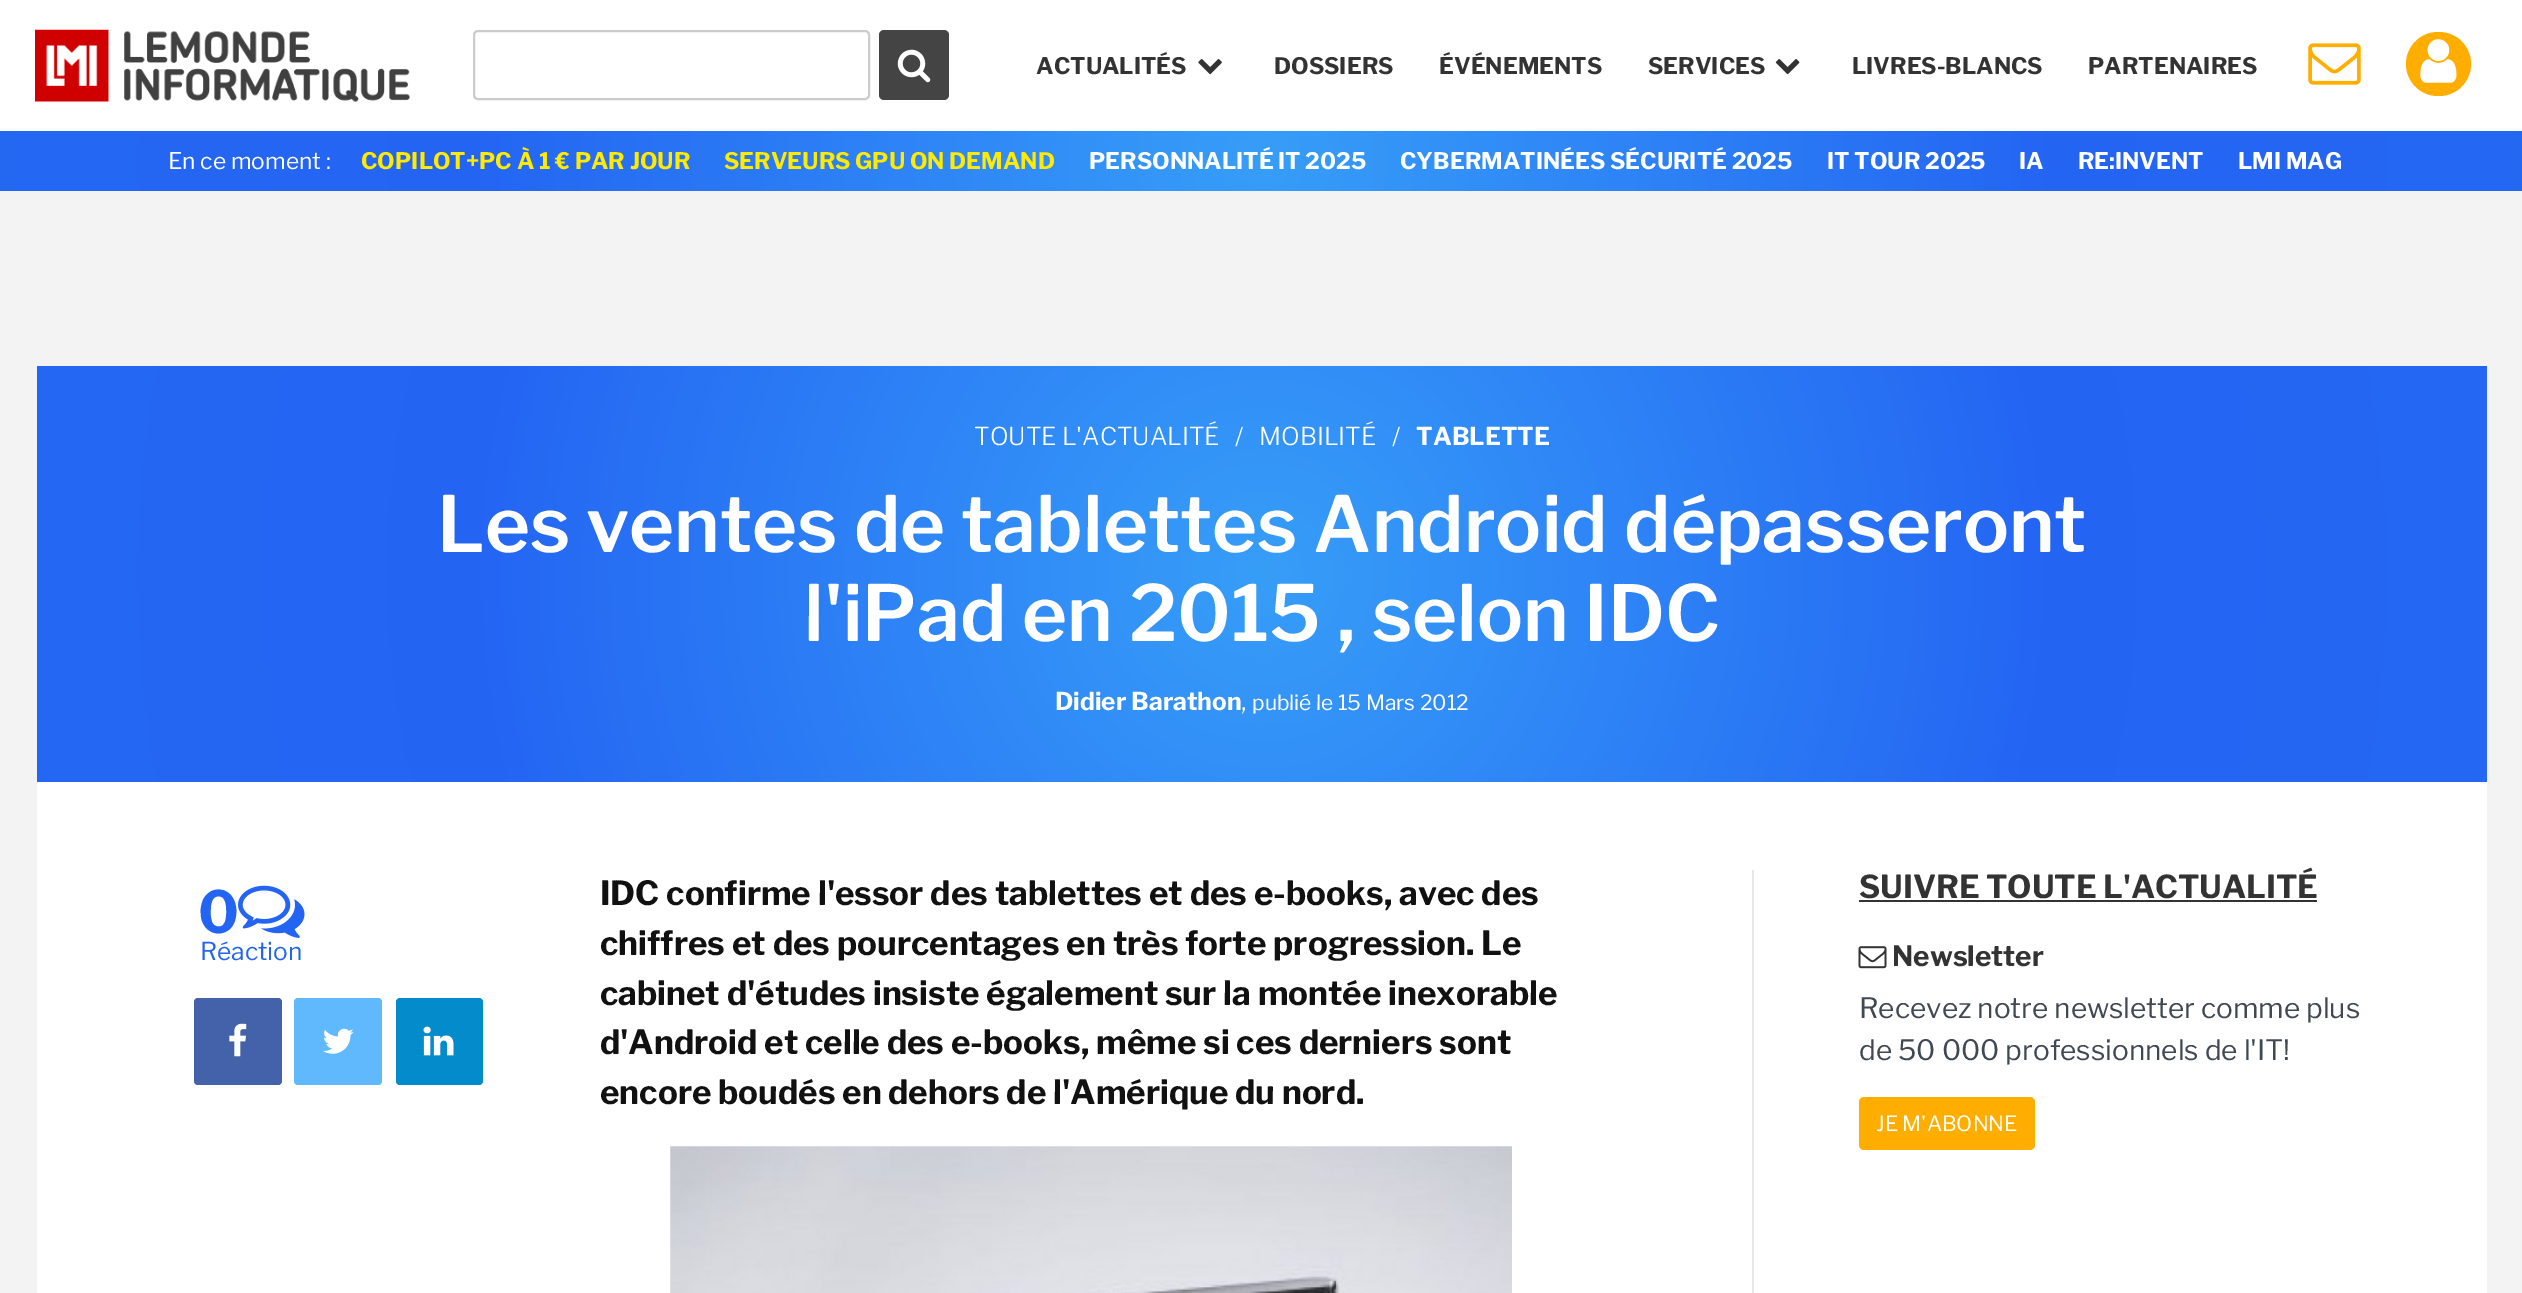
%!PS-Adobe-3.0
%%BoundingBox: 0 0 2522 1293
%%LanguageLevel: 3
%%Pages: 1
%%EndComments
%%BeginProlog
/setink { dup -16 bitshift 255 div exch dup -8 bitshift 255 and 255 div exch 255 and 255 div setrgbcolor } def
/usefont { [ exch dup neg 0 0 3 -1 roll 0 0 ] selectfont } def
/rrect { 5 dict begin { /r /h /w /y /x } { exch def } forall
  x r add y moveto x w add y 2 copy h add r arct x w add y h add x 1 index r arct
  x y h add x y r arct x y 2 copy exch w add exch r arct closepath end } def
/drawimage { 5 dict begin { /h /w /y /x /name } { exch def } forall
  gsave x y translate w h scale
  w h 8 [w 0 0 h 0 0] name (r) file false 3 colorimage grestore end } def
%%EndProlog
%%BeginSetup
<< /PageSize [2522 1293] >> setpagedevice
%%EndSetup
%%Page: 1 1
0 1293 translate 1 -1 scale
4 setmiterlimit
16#F3F3F4 setink
0 0 2522 1293 rectfill
16#FFFFFF setink
0 0 2522 131 rectfill
(img1.raw) 35 29 375 73 drawimage
16#CCCCCC setink
2 setlinewidth
474 31 395 68 4 rrect stroke
16#444444 setink
879 30 70 70 5 rrect fill
(img2.raw) 897 49 34 34 drawimage
/LibreFranklin-Bold 22.75 usefont
16#333333 setink
1036 74 moveto (ACTUALITÉS) show
(img3.raw) 1198 59 24 16 drawimage
[
    [(DOSSIERS) 1274 74]
    [(ÉVÉNEMENTS) 1439 74]
    [(SERVICES) 1648 74]
] { aload pop moveto show } forall
(img4.raw) 1775 59 25 16 drawimage
1852 74 moveto (LIVRES-BLANCS) show
2088 74 moveto (PARTENAIRES) show
(img5.raw) 2308 43 53 42 drawimage
16#FFAE00 setink
2406 32 65 64 32 rrect fill
(img6.raw) 2420 39 37 44 drawimage
gsave 0 131 moveto 2522 131 lineto 2522 191 lineto 0 191 lineto closepath clip newpath 1262 161 translate 4000 4000 scale
<< /ShadingType 3 /ColorSpace /DeviceRGB /Coords [0 0 0 0 0 1] /Extend [true true] /Function << /FunctionType 3 /Domain [0 1] /Functions [<< /FunctionType 2 /Domain [0 1] /C0 [0.216 0.62 0.973] /C1 [0.141 0.392 0.953] /N 1 >> << /FunctionType 2 /Domain [0 1] /C0 [0.141 0.392 0.953] /C1 [0.137 0.471 0.937] /N 1 >> << /FunctionType 2 /Domain [0 1] /C0 [0.137 0.471 0.937] /C1 [0.137 0.471 0.937] /N 1 >>] /Bounds [0.2 0.7] /Encode [0 1 0 1 0 1] >> >> shfill grestore
/LibreFranklin-Regular 22.75 usefont
16#FFFFFF setink
168 169 moveto (En ce moment :) show
/LibreFranklin-Bold 22.75 usefont
16#FFEA00 setink
361 169 moveto (COPILOT+PC À 1 € PAR JOUR) show
724 169 moveto (SERVEURS GPU ON DEMAND) show
16#FFFFFF setink
[
    [(PERSONNALITÉ IT 2025) 1089 169]
    [(CYBERMATINÉES SÉCURITÉ 2025) 1400 169]
    [(IT TOUR 2025) 1827 169]
    [(IA) 2019 169]
    [(RE:INVENT) 2078 169]
    [(LMI MAG) 2238 169]
] { aload pop moveto show } forall
gsave 37 366 moveto 2487 366 lineto 2487 782 lineto 37 782 lineto closepath clip newpath 1262 574 translate 4000 4000 scale
<< /ShadingType 3 /ColorSpace /DeviceRGB /Coords [0 0 0 0 0 1] /Extend [true true] /Function << /FunctionType 3 /Domain [0 1] /Functions [<< /FunctionType 2 /Domain [0 1] /C0 [0.216 0.62 0.973] /C1 [0.141 0.392 0.953] /N 1 >> << /FunctionType 2 /Domain [0 1] /C0 [0.141 0.392 0.953] /C1 [0.137 0.471 0.937] /N 1 >> << /FunctionType 2 /Domain [0 1] /C0 [0.137 0.471 0.937] /C1 [0.137 0.471 0.937] /N 1 >>] /Bounds [0.2 0.7] /Encode [0 1 0 1 0 1] >> >> shfill grestore
/LibreFranklin-Light 24.5 usefont
[
    [(TOUTE L'ACTUALITÉ) 974 445]
    [(/) 1235 445]
    [(MOBILITÉ) 1259 445]
    [(/) 1392 445]
] { aload pop moveto show } forall
/LibreFranklin-Bold 24.5 usefont
1416 445 moveto (TABLETTE) show
/LibreFranklin-SemiBold 77 usefont
437 552 moveto (Les ventes de tablettes Android dépasseront) show
804 641 moveto (l'iPad en 2015 , selon IDC) show
/LibreFranklin-Bold 24.5 usefont
1055 710 moveto (Didier Barathon) show
/LibreFranklin-Regular 24.5 usefont
1241 710 moveto (,) show
/LibreFranklin-Regular 21 usefont
1252 710 moveto (publié le 15 Mars 2012) show
37 782 2450 511 rectfill
/LibreFranklin-Bold 58 usefont
16#2464F3 setink
198 933 moveto (0) show
(img7.raw) 238 885 67 53 drawimage
/LibreFranklin-Regular 24.5 usefont
200 960 moveto (Réaction) show
16#4362A9 setink
194 998 88 87 4 rrect fill
(img8.raw) 229 1023 18 34 drawimage
16#60B9FD setink
294 998 88 87 4 rrect fill
(img9.raw) 323 1028 31 26 drawimage
16#048BCB setink
396 998 87 87 4 rrect fill
(img10.raw) 423 1026 31 30 drawimage
/LibreFranklin-Bold 33.25 usefont
16#111111 setink
[
    [(IDC confirme l'essor des tablettes et des e-books, avec des) 600 905]
    [(chiffres et des pourcentages en très forte progression. Le) 600 955]
    [(cabinet d'études insiste également sur la montée inexorable) 600 1005]
    [(d'Android et celle des e-books, même si ces derniers sont) 600 1054]
    [(encore boudés en dehors de l'Amérique du nord.) 600 1104]
] { aload pop moveto show } forall
(img11.raw) 670 1146 842 147 drawimage
16#E7E7E7 setink
1752 870 2 423 rectfill
/LibreFranklin-Bold 31.5 usefont
16#333333 setink
1859 898 moveto (SUIVRE TOUTE L'ACTUALITÉ) show
1859 900 458 2 rectfill
(img12.raw) 1858 946 29 23 drawimage
/LibreFranklin-Bold 28 usefont
1892 966 moveto (Newsletter) show
/LibreFranklin-Regular 28 usefont
16#3F4853 setink
1859 1018 moveto (Recevez notre newsletter comme plus) show
1859 1060 moveto (de 50 000 professionnels de l'IT!) show
16#FFAE00 setink
1859 1097 176 53 5 rrect fill
/LibreFranklin-Regular 21 usefont
16#FFFFFF setink
1876 1131 moveto (JE M'ABONNE) show
showpage
%%EOF
